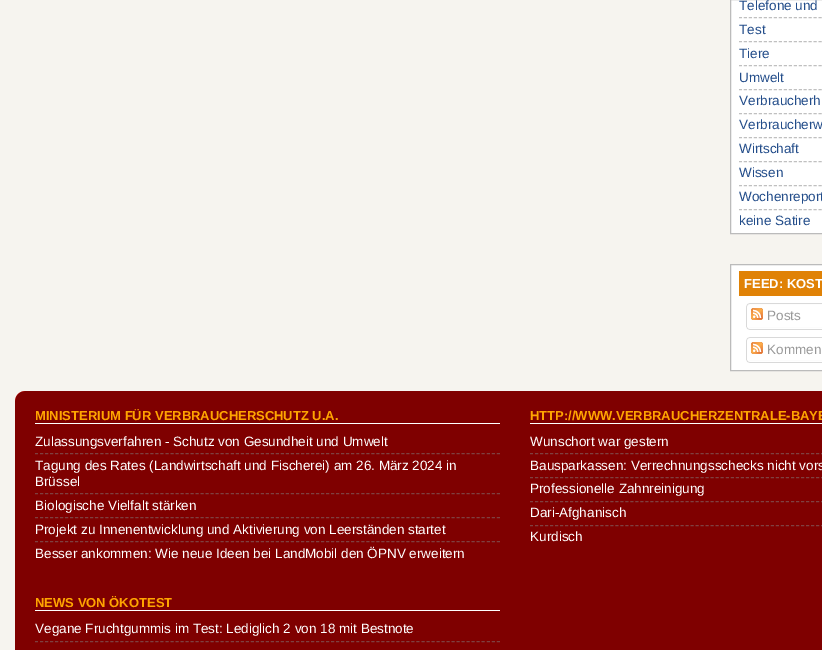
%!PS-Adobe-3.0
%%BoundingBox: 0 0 822 650
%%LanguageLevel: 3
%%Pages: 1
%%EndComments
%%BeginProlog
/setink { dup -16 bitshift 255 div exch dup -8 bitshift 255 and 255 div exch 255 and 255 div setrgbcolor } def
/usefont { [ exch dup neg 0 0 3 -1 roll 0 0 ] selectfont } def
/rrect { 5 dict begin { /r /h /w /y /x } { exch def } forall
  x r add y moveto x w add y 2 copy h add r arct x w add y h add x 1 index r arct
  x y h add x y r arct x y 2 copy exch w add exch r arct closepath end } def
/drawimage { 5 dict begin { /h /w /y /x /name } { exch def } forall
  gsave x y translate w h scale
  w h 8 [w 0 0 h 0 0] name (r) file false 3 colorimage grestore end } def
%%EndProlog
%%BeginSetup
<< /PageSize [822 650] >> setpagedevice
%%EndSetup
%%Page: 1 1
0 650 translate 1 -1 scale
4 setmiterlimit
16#F6F4EF setink
0 0 822 650 rectfill
16#FFFFFF setink
730.5 -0.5 moveto 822.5 -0.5 lineto 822.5 233.5 lineto 730.5 233.5 lineto closepath gsave fill grestore
16#BBBBBB setink
stroke
/LiberationSans-Regular 13.5 usefont
16#234D8A setink
739 10 moveto (Telefone und) show
16#C0C0C0 setink
[3 1.98] 0 setdash
739 17.5 moveto 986 17.5 lineto stroke
16#234D8A setink
739 34 moveto (Test) show
16#C0C0C0 setink
739 41.5 moveto 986 41.5 lineto stroke
16#234D8A setink
739 58 moveto (Tiere) show
16#C0C0C0 setink
739 65.5 moveto 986 65.5 lineto stroke
16#234D8A setink
739 82 moveto (Umwelt) show
16#C0C0C0 setink
739 89.5 moveto 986 89.5 lineto stroke
16#234D8A setink
739 105 moveto (Verbraucherh) show
16#C0C0C0 setink
739 113.5 moveto 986 113.5 lineto stroke
16#234D8A setink
739 129 moveto (Verbraucherw) show
16#C0C0C0 setink
739 137.5 moveto 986 137.5 lineto stroke
16#234D8A setink
739 153 moveto (Wirtschaft) show
16#C0C0C0 setink
739 161.5 moveto 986 161.5 lineto stroke
16#234D8A setink
739 177 moveto (Wissen) show
16#C0C0C0 setink
739 185.5 moveto 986 185.5 lineto stroke
16#234D8A setink
739 201 moveto (Wochenreport) show
16#C0C0C0 setink
739 209.5 moveto 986 209.5 lineto stroke
16#234D8A setink
739 225 moveto (keine Satire) show
16#FFFFFF setink
730.5 264.5 moveto 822.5 264.5 lineto 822.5 370.5 lineto 730.5 370.5 lineto closepath gsave fill grestore
16#BBBBBB setink
[] 0 setdash
stroke
16#E08206 setink
739 271 83 25 rectfill
/LiberationSans-Bold 13 usefont
16#FFFFFF setink
744 288 moveto (FEED: KOST) show
(img1.raw) 746 303 76 24 drawimage
(img2.raw) 751 308 12 12 drawimage
/LiberationSans-Regular 13.5 usefont
16#999999 setink
767 320 moveto (Posts) show
(img3.raw) 746 327 76 3 drawimage
(img4.raw) 746 337 76 23 drawimage
(img2.raw) 751 342 12 12 drawimage
767 354 moveto (Kommen) show
(img3.raw) 746 360 76 3 drawimage
16#FF0000 setink
15 391 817 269 10 rrect fill
(img5.raw) 15 391 807 259 drawimage
16#FFFFFF setink
35 423 465 1 rectfill
/LiberationSans-Bold 13 usefont
16#FFA500 setink
35 420 moveto (MINISTERIUM FÜR VERBRAUCHERSCHUTZ U.A.) show
/LiberationSans-Regular 13.5 usefont
16#FFFFFF setink
35 446 moveto (Zulassungsverfahren - Schutz von Gesundheit und Umwelt) show
16#7F4040 setink
[3 2.02] 0 setdash
35 453.5 moveto 500 453.5 lineto stroke
16#FFFFFF setink
35 470 moveto (Tagung des Rates \(Landwirtschaft und Fischerei\) am 26. März 2024 in) show
35 486 moveto (Brüssel) show
16#7F4040 setink
35 493.5 moveto 500 493.5 lineto stroke
16#FFFFFF setink
35 510 moveto (Biologische Vielfalt stärken) show
16#7F4040 setink
35 517.5 moveto 500 517.5 lineto stroke
16#FFFFFF setink
35 534 moveto (Projekt zu Innenentwicklung und Aktivierung von Leerständen startet) show
16#7F4040 setink
35 541.5 moveto 500 541.5 lineto stroke
16#FFFFFF setink
35 558 moveto (Besser ankommen: Wie neue Ideen bei LandMobil den ÖPNV erweitern) show
35 610 465 1 rectfill
/LiberationSans-Bold 13 usefont
16#FFA500 setink
35 607 moveto (NEWS VON ÖKOTEST) show
/LiberationSans-Regular 13.5 usefont
16#FFFFFF setink
35 633 moveto (Vegane Fruchtgummis im Test: Lediglich 2 von 18 mit Bestnote) show
16#7F4040 setink
35 641.5 moveto 500 641.5 lineto stroke
16#FFFFFF setink
530 423 292 1 rectfill
/LiberationSans-Bold 13 usefont
16#FFA500 setink
530 420 moveto (HTTP://WWW.VERBRAUCHERZENTRALE-BAYE) show
/LiberationSans-Regular 13.5 usefont
16#FFFFFF setink
530 446 moveto (Wunschort war gestern) show
16#804040 setink
530 453.5 moveto 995 453.5 lineto stroke
16#FFFFFF setink
530 470 moveto (Bausparkassen: Verrechnungsschecks nicht vors) show
16#804040 setink
530 477.5 moveto 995 477.5 lineto stroke
16#FFFFFF setink
530 493 moveto (Professionelle Zahnreinigung) show
16#804040 setink
530 501.5 moveto 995 501.5 lineto stroke
16#FFFFFF setink
530 517 moveto (Dari-Afghanisch) show
16#804040 setink
530 525.5 moveto 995 525.5 lineto stroke
16#FFFFFF setink
530 541 moveto (Kurdisch) show
showpage
%%EOF
